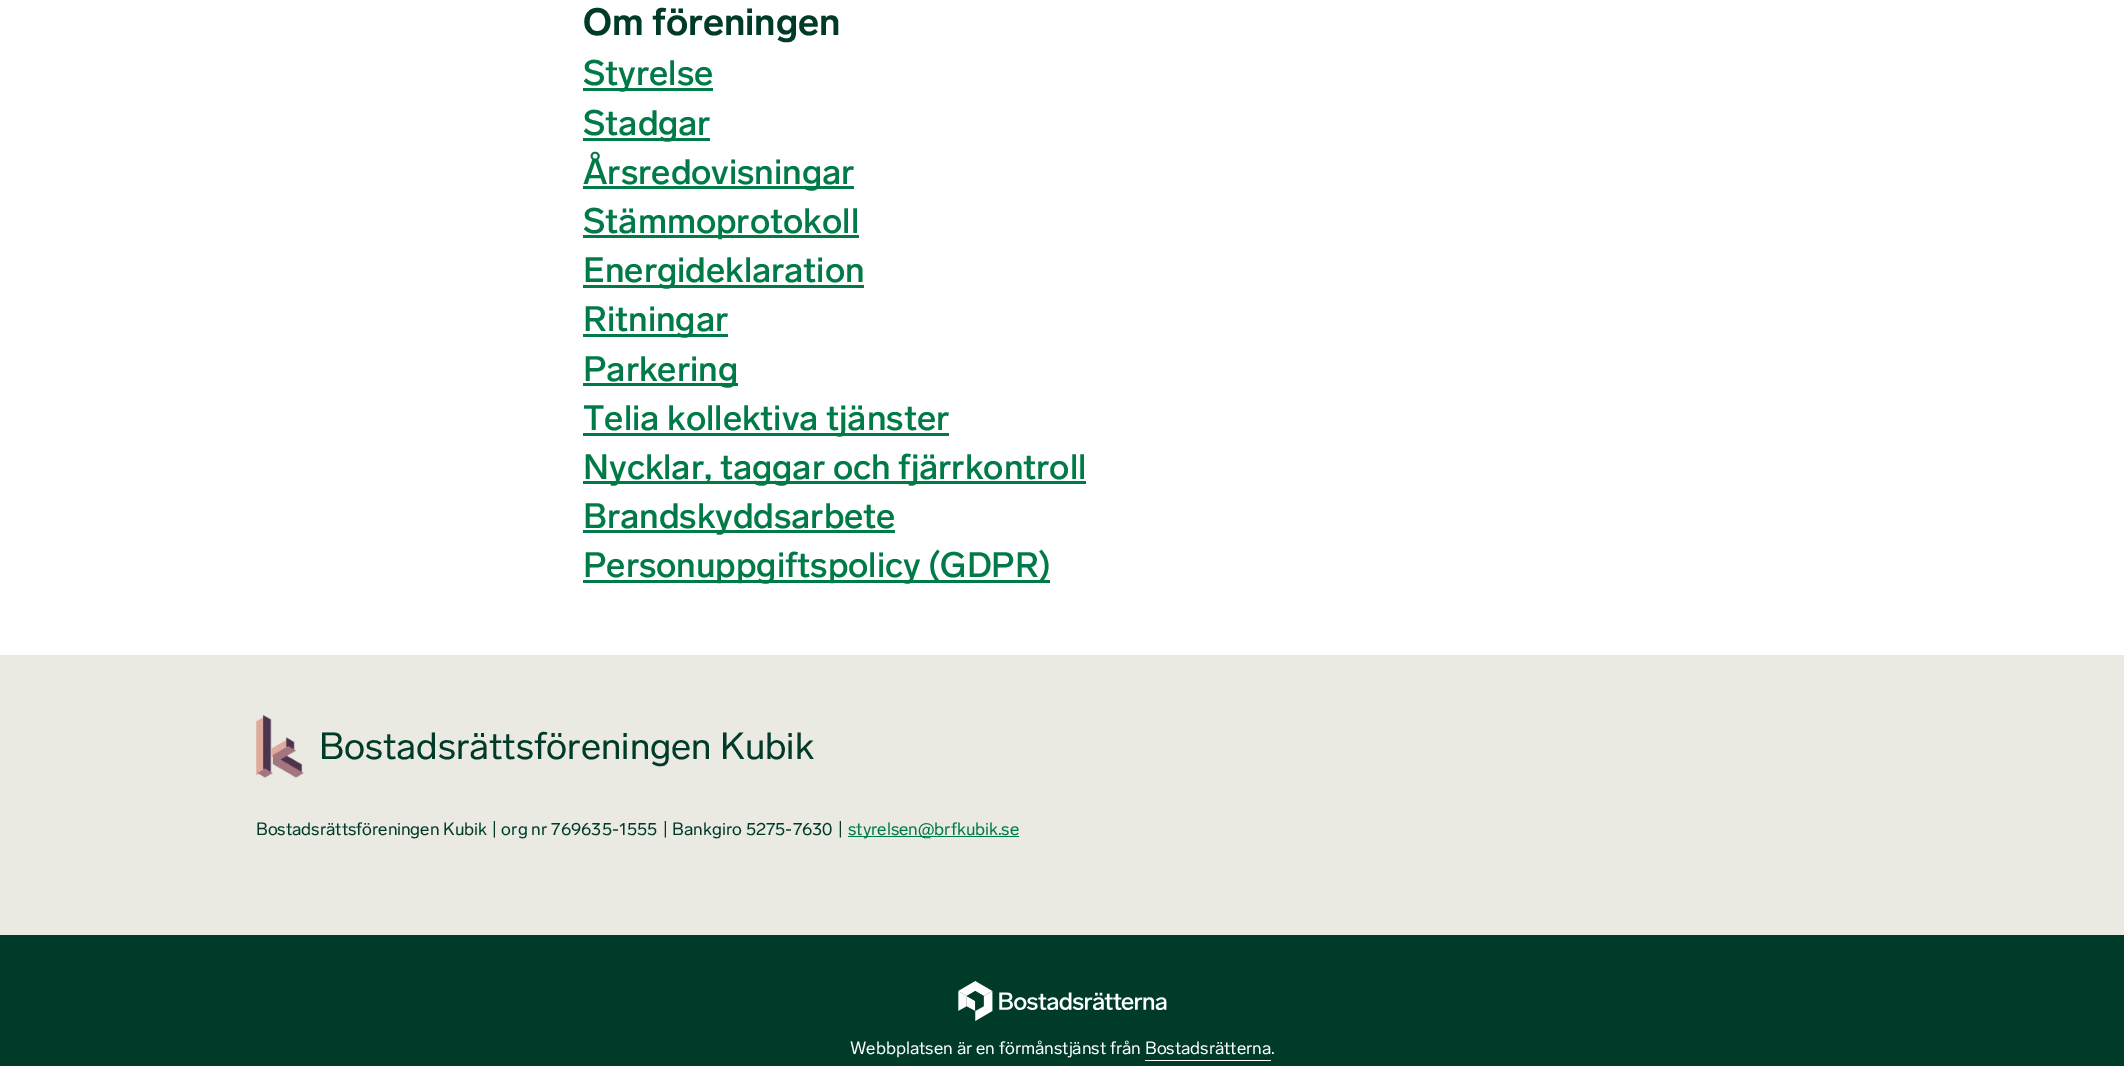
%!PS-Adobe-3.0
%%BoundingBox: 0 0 2124 1066
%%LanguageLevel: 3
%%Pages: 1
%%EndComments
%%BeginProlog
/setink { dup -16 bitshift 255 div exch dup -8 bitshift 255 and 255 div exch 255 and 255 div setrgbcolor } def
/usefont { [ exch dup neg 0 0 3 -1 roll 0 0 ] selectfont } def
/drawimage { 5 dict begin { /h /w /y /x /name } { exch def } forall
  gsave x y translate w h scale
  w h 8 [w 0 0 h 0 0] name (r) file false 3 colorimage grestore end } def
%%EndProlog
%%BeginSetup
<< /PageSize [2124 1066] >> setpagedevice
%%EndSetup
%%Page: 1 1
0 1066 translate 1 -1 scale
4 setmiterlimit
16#FFFFFF setink
0 0 2124 1066 rectfill
/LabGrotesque-Bold 37.5 usefont
16#003B29 setink
583 35 moveto (Om föreningen) show
16#007B47 setink
583 88 130 3 rectfill
/LabGrotesque-Medium 35 usefont
583 85 moveto (Styrelse) show
583 138 127 3 rectfill
583 135 moveto (Stadgar) show
583 186 271 3 rectfill
583 184 moveto (Årsredovisningar) show
583 235 276 3 rectfill
583 233 moveto (Stämmoprotokoll) show
583 285 281 3 rectfill
583 282 moveto (Energideklaration) show
583 334 145 3 rectfill
583 331 moveto (Ritningar) show
583 383 155 3 rectfill
583 381 moveto (Parkering) show
583 433 366 3 rectfill
583 430 moveto (Telia kollektiva tjänster) show
583 481 503 3 rectfill
583 479 moveto (Nycklar, taggar och fjärrkontroll) show
583 530 312 3 rectfill
583 528 moveto (Brandskyddsarbete) show
583 580 467 3 rectfill
583 577 moveto (Personuppgiftspolicy \(GDPR\)) show
16#EAE9E2 setink
0 655 2124 280 rectfill
(img1.raw) 256 715 48 63 drawimage
/LabGrotesque-Regular 37.5 usefont
16#003B29 setink
319 759 moveto (Bostadsrättsföreningen Kubik) show
/LabGrotesque-Regular 17.5 usefont
256 835 moveto (Bostadsrättsföreningen Kubik | org nr 769635-1555 | Bankgiro 5275-7630 |) show
16#007B47 setink
848 836 171 1 rectfill
848 835 moveto (styrelsen@brfkubik.se) show
16#003B29 setink
0 935 2124 131 rectfill
(img2.raw) 958 981 209 40 drawimage
16#FFFFFF setink
850 1054 moveto (Webbplatsen är en förmånstjänst från Bostadsrätterna.) show
1145 1060 126 1 rectfill
showpage
%%EOF
